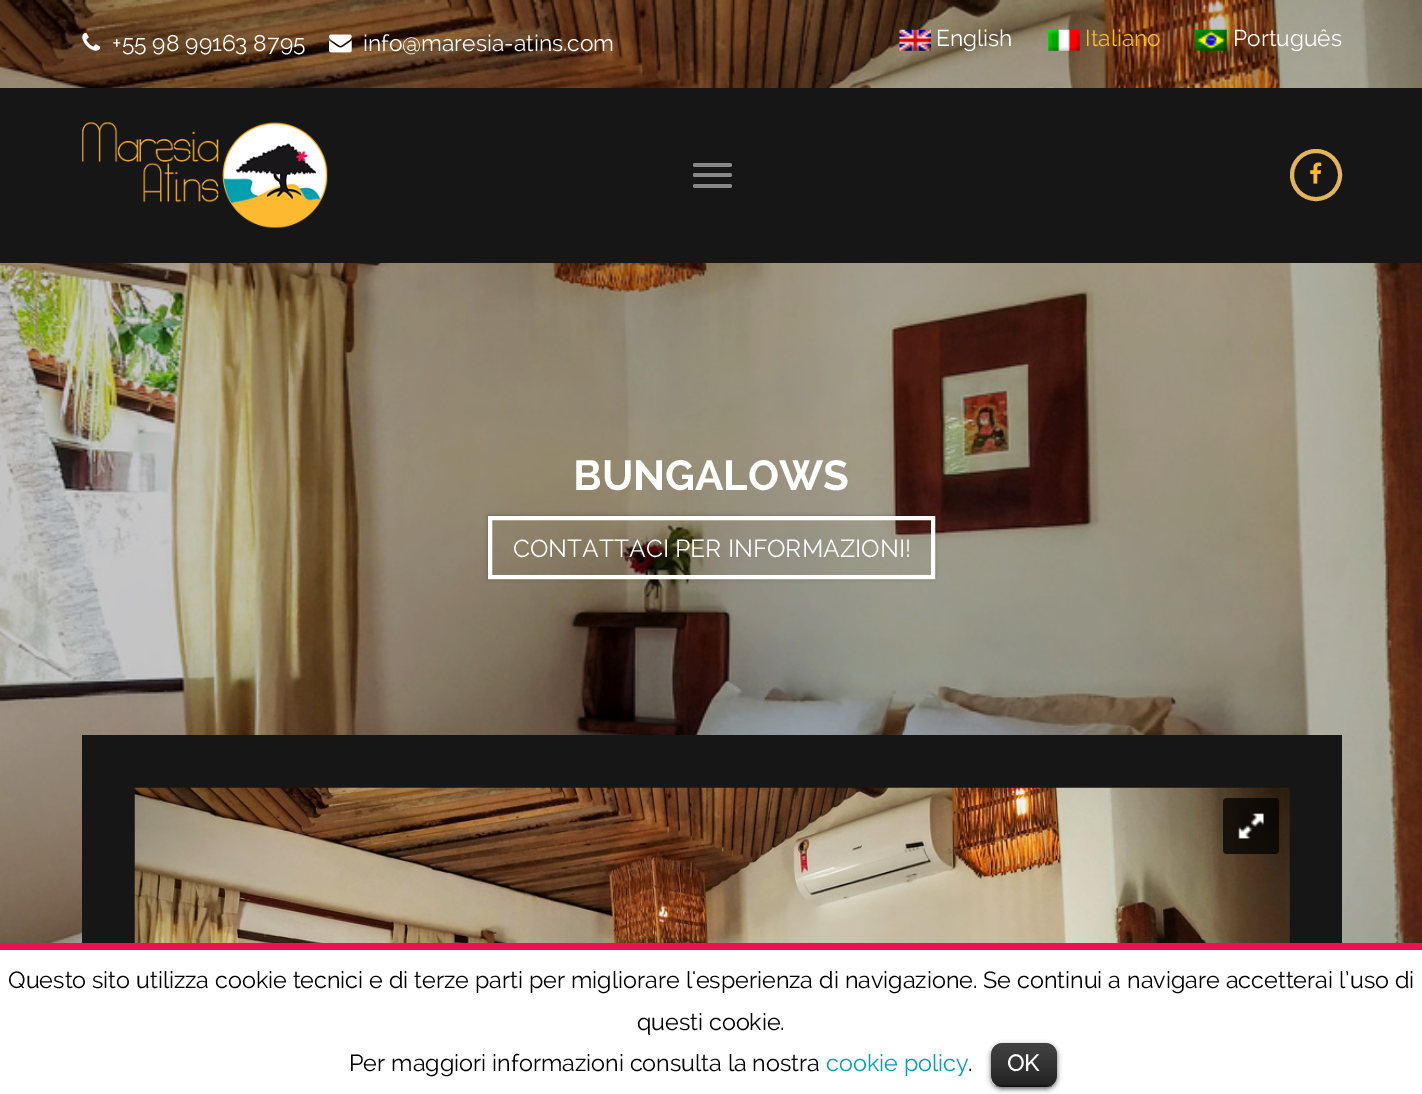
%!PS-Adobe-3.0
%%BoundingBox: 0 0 1422 1094
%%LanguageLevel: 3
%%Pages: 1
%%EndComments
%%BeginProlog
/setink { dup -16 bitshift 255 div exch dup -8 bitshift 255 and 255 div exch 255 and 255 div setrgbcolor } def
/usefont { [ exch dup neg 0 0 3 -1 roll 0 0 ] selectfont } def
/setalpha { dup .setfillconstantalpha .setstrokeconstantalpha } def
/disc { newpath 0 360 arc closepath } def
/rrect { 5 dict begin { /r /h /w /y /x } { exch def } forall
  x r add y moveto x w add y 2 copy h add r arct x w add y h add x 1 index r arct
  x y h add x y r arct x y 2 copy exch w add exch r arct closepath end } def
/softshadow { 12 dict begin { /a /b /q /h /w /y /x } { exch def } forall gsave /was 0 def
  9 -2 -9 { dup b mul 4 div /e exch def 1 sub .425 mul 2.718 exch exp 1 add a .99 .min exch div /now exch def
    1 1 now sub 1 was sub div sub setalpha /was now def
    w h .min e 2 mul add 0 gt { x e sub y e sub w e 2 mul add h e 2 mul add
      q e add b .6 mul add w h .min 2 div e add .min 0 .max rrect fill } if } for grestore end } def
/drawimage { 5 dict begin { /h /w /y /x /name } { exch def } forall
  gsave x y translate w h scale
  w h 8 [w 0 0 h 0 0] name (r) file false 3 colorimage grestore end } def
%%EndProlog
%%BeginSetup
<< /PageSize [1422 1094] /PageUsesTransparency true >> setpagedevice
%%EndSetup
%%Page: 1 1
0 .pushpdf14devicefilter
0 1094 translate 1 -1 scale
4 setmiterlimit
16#FFFFFF setink
0 0 1422 1094 rectfill
(img8.raw) 0 0 1422 943 drawimage
(img1.raw) 82 32 19 19 drawimage
/Raleway-Regular 22.75 usefont
112 51 moveto (+55 98 99163 8795) show
(img2.raw) 329 34 23 19 drawimage
363 51 moveto (info@maresia-atins.com) show
(img3.raw) 899 29 32 22 drawimage
936 46 moveto (English) show
(img4.raw) 1048 29 32 22 drawimage
16#FDBA31 setink
1085 46 moveto (Italiano) show
(img5.raw) 1195 29 32 22 drawimage
16#FFFFFF setink
1233 46 moveto (Português) show
16#161616 setink
0 88 1422 175 rectfill
(img6.raw) 82 122 246 106 drawimage
16#888888 setink
693 163 39 4 2 rrect fill
693 173 39 4 2 rrect fill
693 184 39 4 2 rrect fill
16#E2B55D setink
4 setlinewidth
1316 175 24 disc stroke
(img7.raw) 1310 162 12 22 drawimage
/Raleway-Bold 42 usefont
16#FFFFFF setink
573 490 moveto (BUNGALOWS) show
gsave
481 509 moveto 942 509 lineto 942 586 lineto 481 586 lineto closepath 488 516 moveto 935 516 lineto 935 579 lineto 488 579 lineto closepath eoclip newpath
16#000000 setink
488 516 447 63 0 2 0.3 softshadow
grestore
490 518 443 59 rectstroke
/Raleway-Regular 24.5 usefont
513 557 moveto (CONTATTACI PER INFORMAZIONI!) show
16#161616 setink
82 735 1260 208 rectfill
(img9.raw) 134 787 1156 156 drawimage
0.75 setalpha
16#000000 setink
1223 798 56 56 4 rrect fill
1 setalpha
(img10.raw) 1238 813 26 26 drawimage
16#EF1154 setink
0 943 1422 7 rectfill
/Raleway-Regular 23.33 usefont
16#000000 setink
[
    [(Questo sito utilizza cookie tecnici e di terze parti per migliorare l'esperienza di navigazione. Se continui a navigare accetterai l’uso di) 8 988]
    [(questi cookie.) 637 1030]
    [(Per maggiori informazioni consulta la nostra) 349 1071]
] { aload pop moveto show } forall
16#00A0AF setink
826 1071 moveto (cookie policy) show
16#000000 setink
968 1071 moveto (.) show
991 1045 66 44 11 2.5 0.6 softshadow
991 1043 66 44 11 rrect fill
(img11.raw) 991 1043 66 44 drawimage
0.25 setalpha
996 1085 56 2 rectfill
/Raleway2-Bold 22.75 usefont
1 setalpha
16#FFFFFF setink
1007 1071 moveto (OK) show
.poppdf14devicefilter showpage
%%EOF
